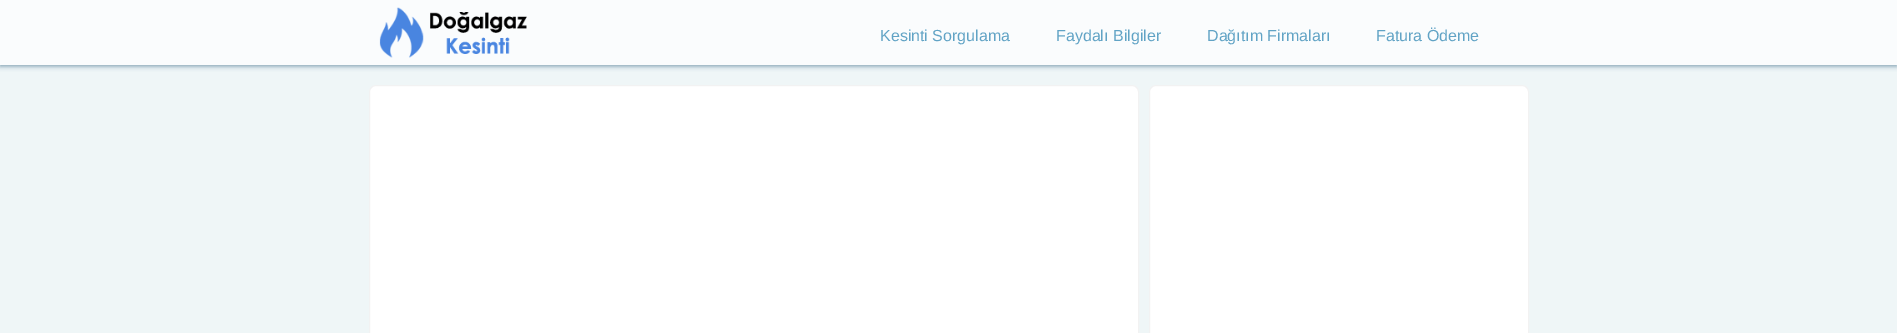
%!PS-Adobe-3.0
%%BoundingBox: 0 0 1897 333
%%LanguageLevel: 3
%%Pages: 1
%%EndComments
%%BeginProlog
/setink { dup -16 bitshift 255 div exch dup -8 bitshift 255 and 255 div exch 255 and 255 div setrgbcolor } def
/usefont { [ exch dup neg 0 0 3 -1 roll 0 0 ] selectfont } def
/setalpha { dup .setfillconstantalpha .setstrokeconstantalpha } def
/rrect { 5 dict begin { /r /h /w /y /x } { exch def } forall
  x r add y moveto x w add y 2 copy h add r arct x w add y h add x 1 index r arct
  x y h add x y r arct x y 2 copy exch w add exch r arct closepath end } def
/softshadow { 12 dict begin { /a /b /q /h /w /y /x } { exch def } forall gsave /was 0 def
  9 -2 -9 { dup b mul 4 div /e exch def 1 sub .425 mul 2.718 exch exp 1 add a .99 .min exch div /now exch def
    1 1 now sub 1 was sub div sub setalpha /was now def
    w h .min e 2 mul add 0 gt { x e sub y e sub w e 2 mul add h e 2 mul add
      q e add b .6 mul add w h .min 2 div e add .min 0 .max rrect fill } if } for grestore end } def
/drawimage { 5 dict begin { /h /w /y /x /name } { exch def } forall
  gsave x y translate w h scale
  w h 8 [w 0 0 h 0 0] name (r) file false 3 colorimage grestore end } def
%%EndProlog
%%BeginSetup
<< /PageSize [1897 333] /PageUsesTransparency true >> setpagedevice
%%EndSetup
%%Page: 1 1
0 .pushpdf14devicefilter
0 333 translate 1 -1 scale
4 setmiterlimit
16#EFF6F7 setink
0 0 1897 333 rectfill
16#7598AA setink
0 1 1897 65 0 2.5 1 softshadow
16#FAFCFD setink
0 0 1897 65 rectfill
(img1.raw) 379 7 148 51 drawimage
/LiberationSans-Regular 16 usefont
16#61A3C5 setink
[
    [(Kesinti Sorgulama) 880 41]
    [(Faydalı Bilgiler) 1056 41]
    [(Dağıtım Firmaları) 1207 41]
    [(Fatura Ödeme) 1376 41]
] { aload pop moveto show } forall
16#FFFFFF setink
369.5 85.5 769 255 6.5 rrect gsave fill grestore
16#F2F2F2 setink
stroke
16#FFFFFF setink
1149.5 85.5 379 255 6.5 rrect gsave fill grestore
16#F2F2F2 setink
stroke
.poppdf14devicefilter showpage
%%EOF
